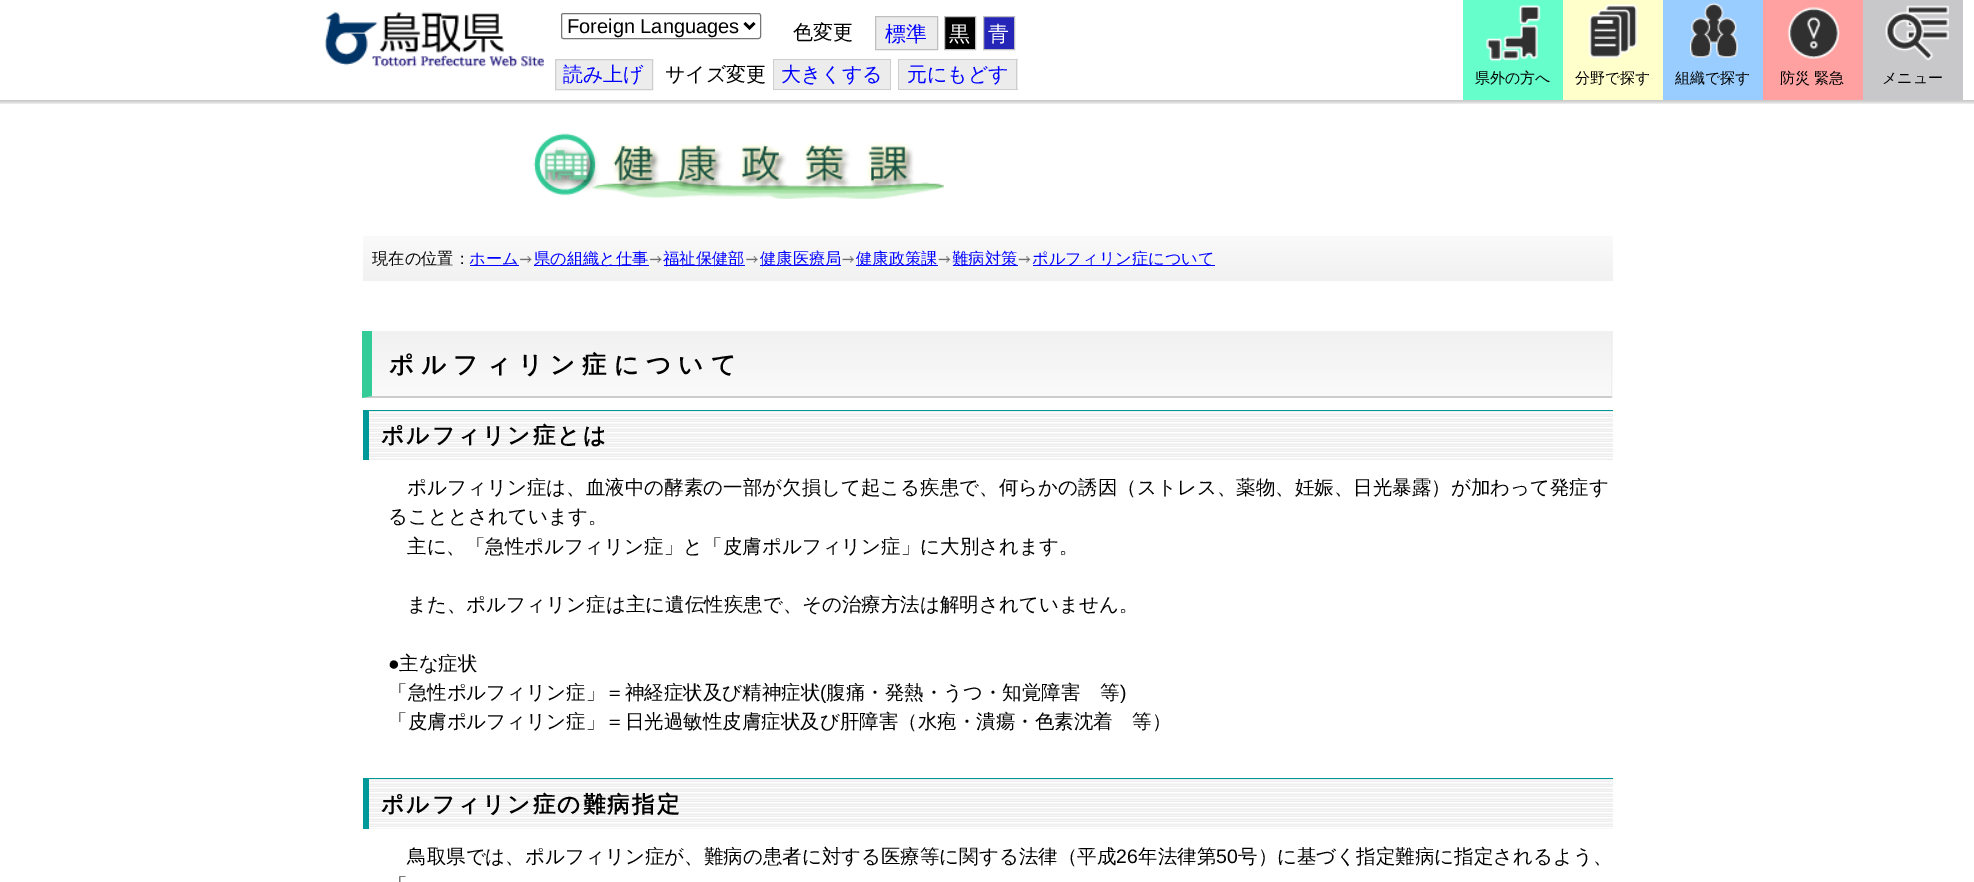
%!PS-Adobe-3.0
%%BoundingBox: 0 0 1974 882
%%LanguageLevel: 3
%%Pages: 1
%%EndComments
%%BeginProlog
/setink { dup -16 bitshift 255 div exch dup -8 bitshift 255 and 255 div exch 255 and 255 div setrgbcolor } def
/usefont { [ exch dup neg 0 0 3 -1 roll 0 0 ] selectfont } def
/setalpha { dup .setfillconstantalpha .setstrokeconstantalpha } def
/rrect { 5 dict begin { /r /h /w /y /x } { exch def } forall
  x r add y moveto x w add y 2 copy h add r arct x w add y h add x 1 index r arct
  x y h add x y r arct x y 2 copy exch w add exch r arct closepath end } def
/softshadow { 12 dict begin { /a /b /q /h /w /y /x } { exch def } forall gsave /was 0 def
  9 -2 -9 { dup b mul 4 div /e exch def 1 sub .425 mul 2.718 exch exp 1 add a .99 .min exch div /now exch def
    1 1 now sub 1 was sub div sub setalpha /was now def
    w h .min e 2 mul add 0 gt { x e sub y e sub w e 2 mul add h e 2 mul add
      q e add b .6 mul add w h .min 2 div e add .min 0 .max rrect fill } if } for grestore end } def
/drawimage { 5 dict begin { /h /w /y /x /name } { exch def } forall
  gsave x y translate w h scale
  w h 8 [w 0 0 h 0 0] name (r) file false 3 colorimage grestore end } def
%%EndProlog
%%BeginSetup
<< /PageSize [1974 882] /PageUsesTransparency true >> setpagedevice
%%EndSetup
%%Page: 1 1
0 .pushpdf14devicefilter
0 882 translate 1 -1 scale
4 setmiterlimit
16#FFFFFF setink
0 0 1974 882 rectfill
gsave
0 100 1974 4 rectclip
16#000000 setink
-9 1 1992 100 0 3 0.1 softshadow
-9 1 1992 100 0 3 0.1 softshadow
-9 1 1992 100 0 3 0.1 softshadow
-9 1 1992 100 0 3 0.1 softshadow
grestore
(img1.raw) 325 12 219 55 drawimage
16#767676 setink
561.5 13.5 199 25 2 rrect stroke
16#000000 setink
2.5 setlinewidth
744.5 23 moveto 749.5 28 lineto 754.5 23 lineto stroke
/LiberationSans-Regular 20 usefont
567 33 moveto (Foreign Languages) show
/WenQuanYiZenHei-Medium 20 usefont
793 39 moveto (色変更) show
16#ECECEC setink
875.5 16.5 moveto 937.5 16.5 lineto 937.5 49.5 lineto 875.5 49.5 lineto closepath gsave fill grestore
16#BFBFBF setink
1 setlinewidth
stroke
/WenQuanYiZenHei-Medium 21 usefont
16#0000FF setink
885 41 moveto (標準) show
16#000000 setink
944.5 16.5 moveto 975.5 16.5 lineto 975.5 49.5 lineto 944.5 49.5 lineto closepath gsave fill grestore
16#BFBFBF setink
stroke
16#FFFFFF setink
949 41 moveto (黒) show
16#2525B8 setink
983.5 16.5 moveto 1014.5 16.5 lineto 1014.5 49.5 lineto 983.5 49.5 lineto closepath gsave fill grestore
16#BFBFBF setink
stroke
16#FFFFFF setink
988 41 moveto (青) show
16#ECECEC setink
555.5 59.5 moveto 652.5 59.5 lineto 652.5 89.5 lineto 555.5 89.5 lineto closepath gsave fill grestore
16#CECECE setink
stroke
/WenQuanYiZenHei-Medium 20 usefont
16#0000FF setink
563 81 moveto (読み上げ) show
16#000000 setink
665 81 moveto (サイズ変更) show
16#ECECEC setink
774 60 116 29 rectfill
16#0000FF setink
781 81 moveto (大きくする) show
[
    [773 59 118 1 16#CECECE]
    [773 89 28 1 16#CECECE]
    [773 59 1 31 16#CECECE]
    [890 59 1 31 16#CECECE]
    [801 89 90 1 16#CECECE]
    [899 60 119 29 16#ECECEC]
] { aload pop setink rectfill } forall
16#0000FF setink
907 81 moveto (元にもどす) show
[
    [898 59 120 1 16#CECECE]
    [898 89 28 1 16#CECECE]
    [898 59 1 31 16#CECECE]
    [1016 59 1 31 16#CECECE]
    [926 89 92 1 16#CECECE]
    [1463 0 100 100 16#66FFCC]
] { aload pop setink rectfill } forall
(img2.raw) 1486 4 55 58 drawimage
/WenQuanYiZenHei-Medium 15 usefont
16#000000 setink
1475 83 moveto (県外の方へ) show
16#FFFFCC setink
1563 0 100 100 rectfill
(img3.raw) 1588 4 50 55 drawimage
16#000000 setink
1575 83 moveto (分野で探す) show
16#99CCFF setink
1663 0 100 100 rectfill
(img4.raw) 1689 2 50 56 drawimage
16#000000 setink
1675 83 moveto (組織で探す) show
16#FFA1A1 setink
1763 0 100 100 rectfill
(img5.raw) 1787 7 53 52 drawimage
16#000000 setink
1780 83 moveto (防災 緊急) show
16#C8C8CB setink
1863 0 100 100 rectfill
(img6.raw) 1885 5 64 56 drawimage
16#000000 setink
1882 83 moveto (メニュー) show
(img7.raw) 533 133 411 66 drawimage
gsave 363 236 moveto 1613 236 lineto 1613 281 lineto 363 281 lineto closepath clip newpath
<< /ShadingType 2 /ColorSpace /DeviceRGB /Coords [988 236 988 281] /Extend [true true] /Function << /FunctionType 2 /Domain [0 1] /C0 [0.98 0.98 0.98] /C1 [0.945 0.945 0.945] /N 1 >> >> shfill grestore
/WenQuanYiZenHei-Medium 16.25 usefont
372 264 moveto (現在の位置：) show
16#0000FF setink
470 265 49 1 rectfill
469 264 moveto (ホーム) show
(img8.raw) 519 256 13 7 drawimage
534 265 115 1 rectfill
534 264 moveto (県の組織と仕事) show
(img9.raw) 649 256 13 7 drawimage
664 265 81 1 rectfill
663 264 moveto (福祉保健部) show
(img10.raw) 746 256 12 7 drawimage
760 265 81 1 rectfill
760 264 moveto (健康医療局) show
(img11.raw) 842 256 12 7 drawimage
856 265 82 1 rectfill
856 264 moveto (健康政策課) show
(img12.raw) 938 256 13 7 drawimage
953 265 65 1 rectfill
952 264 moveto (難病対策) show
(img13.raw) 1018 256 13 7 drawimage
1033 265 182 1 rectfill
1032 264 moveto (ポルフィリン症について) show
gsave 372 331 moveto 1613 331 lineto 1613 396 lineto 372 396 lineto closepath clip newpath
<< /ShadingType 2 /ColorSpace /DeviceRGB /Coords [992 331 992 396] /Extend [true true] /Function << /FunctionType 2 /Domain [0 1] /C0 [0.945 0.945 0.945] /C1 [0.98 0.98 0.98] /N 1 >> >> shfill grestore
gsave 363 396 moveto 1613 396 lineto 1613 398 lineto 363 398 lineto closepath clip newpath
<< /ShadingType 2 /ColorSpace /DeviceRGB /Coords [992 396 992 461] /Extend [true true] /Function << /FunctionType 2 /Domain [0 1] /C0 [0.945 0.945 0.945] /C1 [0.98 0.98 0.98] /N 1 >> >> shfill grestore
16#EEEEEE setink
1611 331 1 67 rectfill
16#CCCCCC setink
1612 398 moveto 362 398 lineto 372 396 lineto 1611 396 lineto closepath fill
16#33CC99 setink
362 398 moveto 362 331 lineto 372 331 lineto 372 396 lineto closepath fill
/WenQuanYiZenHei-Bold 24.4 usefont
16#000000 setink
389 373 moveto 7.25 0 (ポルフィリン症について) ashow
(img14.raw) 369 411 1244 49 drawimage
16#009999 setink
363 410 1250 1 rectfill
363 410 6 50 rectfill
/WenQuanYiZenHei-Bold 22.5 usefont
16#000000 setink
381 443 moveto 2.25 0 (ポルフィリン症とは) ashow
/WenQuanYiZenHei-Medium 19.5 usefont
[
    [(ポルフィリン症は、血液中の酵素の一部が欠損して起こる疾患で、何らかの誘因（ストレス、薬物、妊娠、日光暴露）が加わって発症す) 407 494]
    [(ることとされています。) 388 523]
    [(主に、「急性ポルフィリン症」と「皮膚ポルフィリン症」に大別されます。) 407 553]
    [(また、ポルフィリン症は主に遺伝性疾患で、その治療方法は解明されていません。) 407 611]
] { aload pop moveto show } forall
/LiberationSans-Regular 19.5 usefont
388 670 moveto (●) show
/WenQuanYiZenHei-Medium 19.5 usefont
399 670 moveto (主な症状) show
388 699 moveto (「急性ポルフィリン症」＝神経症状及び精神症状) show
/LiberationSans-Regular 19.5 usefont
820 699 moveto (\() show
/WenQuanYiZenHei-Medium 19.5 usefont
826 699 moveto (腹痛・発熱・うつ・知覚障害　等) show
/LiberationSans-Regular 19.5 usefont
1120 699 moveto (\)) show
/WenQuanYiZenHei-Medium 19.5 usefont
388 728 moveto (「皮膚ポルフィリン症」＝日光過敏性皮膚症状及び肝障害（水疱・潰瘍・色素沈着　等）) show
(img15.raw) 369 779 1244 50 drawimage
16#009999 setink
363 778 1250 1 rectfill
363 778 6 51 rectfill
/WenQuanYiZenHei-Bold 22.5 usefont
16#000000 setink
381 812 moveto 2.25 0 (ポルフィリン症の難病指定) ashow
/WenQuanYiZenHei-Medium 19.5 usefont
407 863 moveto (鳥取県では、ポルフィリン症が、難病の患者に対する医療等に関する法律（平成) show
/LiberationSans-Regular 19.5 usefont
1116 863 moveto (26) show
/WenQuanYiZenHei-Medium 19.5 usefont
1138 863 moveto (年法律第) show
/LiberationSans-Regular 19.5 usefont
1216 863 moveto (50) show
/WenQuanYiZenHei-Medium 19.5 usefont
1238 863 moveto (号）に基づく指定難病に指定されるよう、) show
388 892 moveto (「) show
.poppdf14devicefilter showpage
%%EOF
